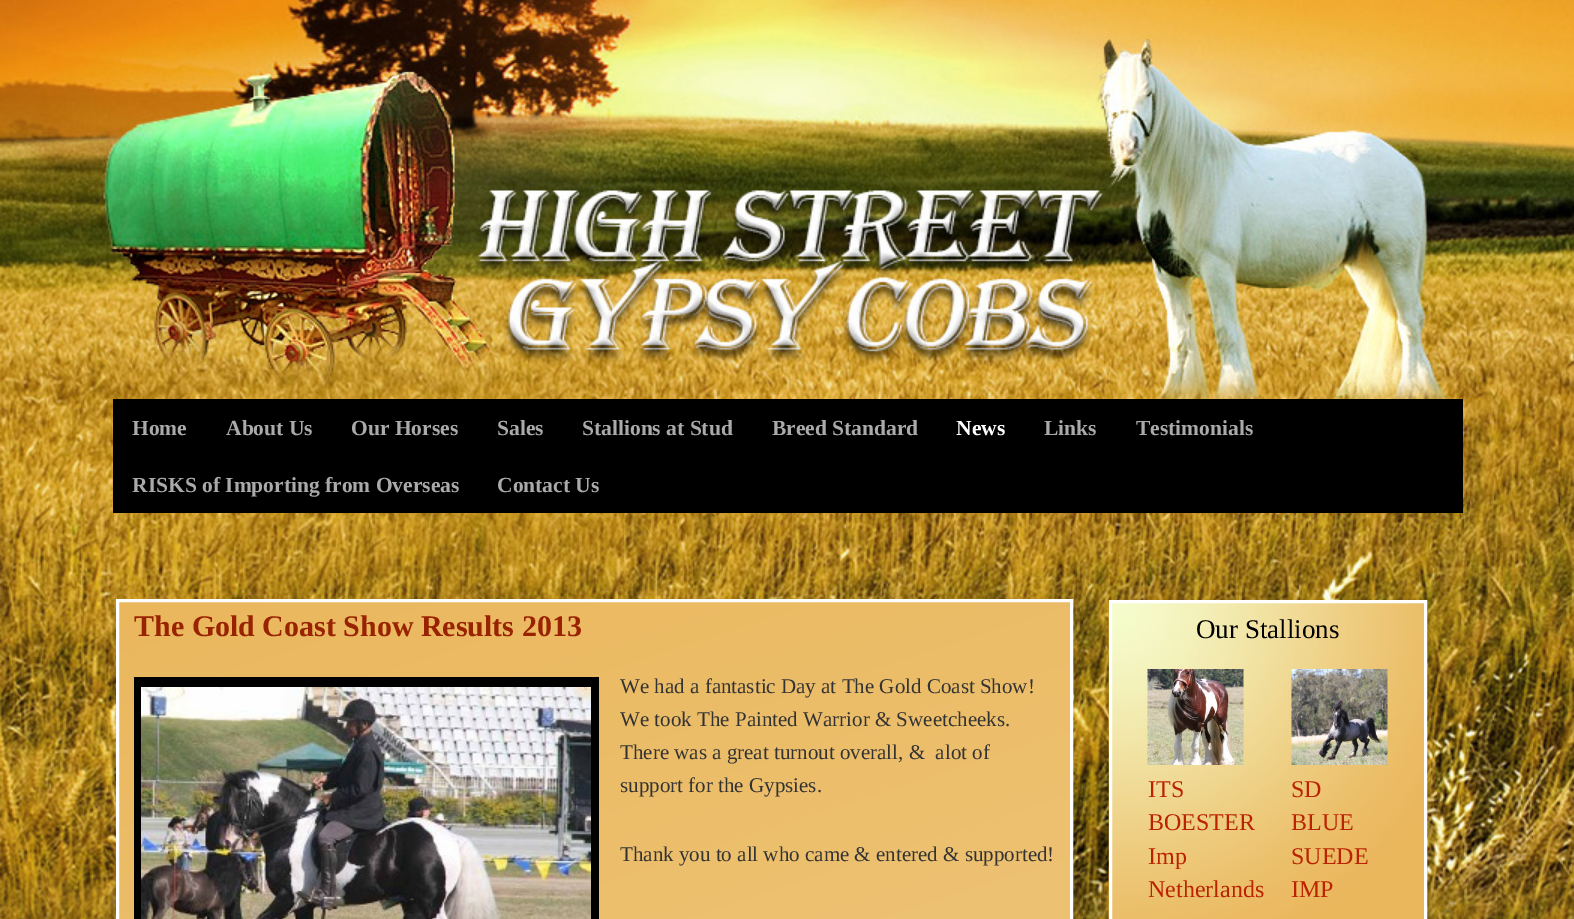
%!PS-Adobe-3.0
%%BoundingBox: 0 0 1574 919
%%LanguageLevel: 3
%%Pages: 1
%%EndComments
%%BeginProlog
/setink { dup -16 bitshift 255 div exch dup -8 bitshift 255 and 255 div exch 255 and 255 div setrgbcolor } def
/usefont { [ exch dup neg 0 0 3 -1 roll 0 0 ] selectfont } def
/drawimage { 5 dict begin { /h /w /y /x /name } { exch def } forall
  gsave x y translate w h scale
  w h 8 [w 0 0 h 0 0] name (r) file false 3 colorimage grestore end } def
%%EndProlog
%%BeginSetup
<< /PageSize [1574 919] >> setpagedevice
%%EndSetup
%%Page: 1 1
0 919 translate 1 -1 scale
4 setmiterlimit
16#FFFFFF setink
0 0 1574 919 rectfill
(img1.raw) 0 0 1574 919 drawimage
16#000000 setink
113 399 1350 114 rectfill
/LiberationSerif-Bold 21.5 usefont
16#AAAAAA setink
[
    [(Home) 132 435]
    [(About Us) 226 435]
    [(Our Horses) 351 435]
    [(Sales) 497 435]
    [(Stallions at Stud) 582 435]
    [(Breed Standard) 772 435]
] { aload pop moveto show } forall
16#FFFFFF setink
956 435 moveto (News) show
16#AAAAAA setink
[
    [(Links) 1044 435]
    [(Testimonials) 1136 435]
    [(RISKS of Importing from Overseas) 132 492]
    [(Contact Us) 497 492]
] { aload pop moveto show } forall
gsave 119 602 moveto 1070 602 lineto 1070 919 lineto 119 919 lineto closepath clip newpath
<< /ShadingType 2 /ColorSpace /DeviceRGB /Coords [1058 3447 130 594] /Extend [true true] /Function << /FunctionType 2 /Domain [0 1] /C0 [0.984 0.937 0.8] /C1 [0.918 0.718 0.365] /N 1 >> >> shfill grestore
16#FFFFFF setink
3 setlinewidth
117.5 600.5 954 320 rectstroke
/LiberationSerif-Bold 30 usefont
16#992200 setink
134 636 moveto (The Gold Coast Show Results 2013) show
16#000000 setink
134 677 465 242 rectfill
(img2.raw) 141 687 450 232 drawimage
/LiberationSerif-Regular 21 usefont
16#333333 setink
[
    [(We had a fantastic Day at The Gold Coast Show!) 620 693]
    [(We took The Painted Warrior & Sweetcheeks.) 620 726]
    [(There was a great turnout overall, &  alot of) 620 759]
    [(support for the Gypsies.) 620 792]
    [(Thank you to all who came & entered & supported!) 620 861]
] { aload pop moveto show } forall
(img3.raw) 1108 600 316 319 drawimage
16#FFFFFF setink
1110.5 601.5 315 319 rectstroke
/LiberationSerif-Regular 27 usefont
16#000000 setink
1196 638 moveto (Our Stallions) show
(img4.raw) 1147 669 97 96 drawimage
/LiberationSerif-Regular 24 usefont
16#BB2200 setink
[
    [(ITS) 1148 797]
    [(BOESTER) 1148 830]
    [(Imp) 1148 864]
    [(Netherlands) 1148 897]
] { aload pop moveto show } forall
(img5.raw) 1291 669 97 96 drawimage
[
    [(SD) 1291 797]
    [(BLUE) 1291 830]
    [(SUEDE) 1291 864]
    [(IMP) 1291 897]
] { aload pop moveto show } forall
showpage
%%EOF
